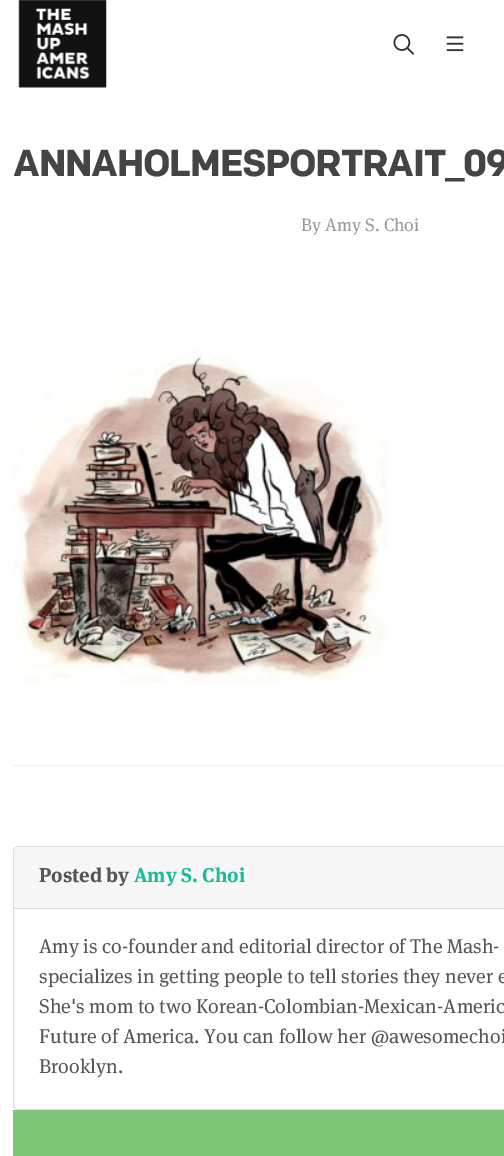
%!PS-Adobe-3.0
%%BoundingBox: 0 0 504 1156
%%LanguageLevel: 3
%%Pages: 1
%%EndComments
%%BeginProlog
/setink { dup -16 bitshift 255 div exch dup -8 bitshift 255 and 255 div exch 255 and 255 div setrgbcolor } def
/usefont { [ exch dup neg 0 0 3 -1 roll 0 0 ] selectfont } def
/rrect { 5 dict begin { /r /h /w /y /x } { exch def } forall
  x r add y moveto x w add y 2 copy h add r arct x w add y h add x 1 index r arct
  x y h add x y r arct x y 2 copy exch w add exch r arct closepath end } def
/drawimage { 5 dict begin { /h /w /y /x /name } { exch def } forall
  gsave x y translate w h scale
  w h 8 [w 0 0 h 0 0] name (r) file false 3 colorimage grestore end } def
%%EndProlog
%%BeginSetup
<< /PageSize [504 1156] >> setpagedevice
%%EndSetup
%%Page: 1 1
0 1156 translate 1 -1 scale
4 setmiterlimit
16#FFFFFF setink
0 0 504 1156 rectfill
(img1.raw) 18 0 89 88 drawimage
(img2.raw) 393 34 21 21 drawimage
(img3.raw) 446 36 18 16 drawimage
/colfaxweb-Bold 37.5 usefont
16#444444 setink
13 176 moveto -1.25 0 (ANNAHOLMESPORTRAIT_09) ashow
/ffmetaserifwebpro-Medium 18 usefont
16#999999 setink
301 231 moveto (By Amy S. Choi) show
(img4.raw) 12 349 376 335 drawimage
16#EEEEEE setink
13 765 491 1 rectfill
16#DFDFDF setink
13.5 846.5 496 263 4.5 rrect stroke
16#F7F7F7 setink
18 848 moveto 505 848 lineto 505 909 lineto 14 909 lineto 14 852 lineto 14 850 16 848 18 848 curveto closepath fill
16#D8D8D8 setink
14 908 490 1 rectfill
/ffmetaserifwebpro-Bold 20 usefont
16#555555 setink
39 882 moveto (Posted by) show
16#1ABC9C setink
134 882 moveto (Amy S. Choi) show
/ffmetaserifwebpro-Medium 20 usefont
16#555555 setink
[
    [(Amy is co-founder and editorial director of The Mash-) 39 953]
    [(specializes in getting people to tell stories they never e) 39 983]
    [(She's mom to two Korean-Colombian-Mexican-Americ) 39 1013]
    [(Future of America. You can follow her @awesomechoi) 39 1043]
    [(Brooklyn.) 39 1073]
] { aload pop moveto show } forall
16#7CC576 setink
13 1110 491 46 rectfill
showpage
%%EOF
